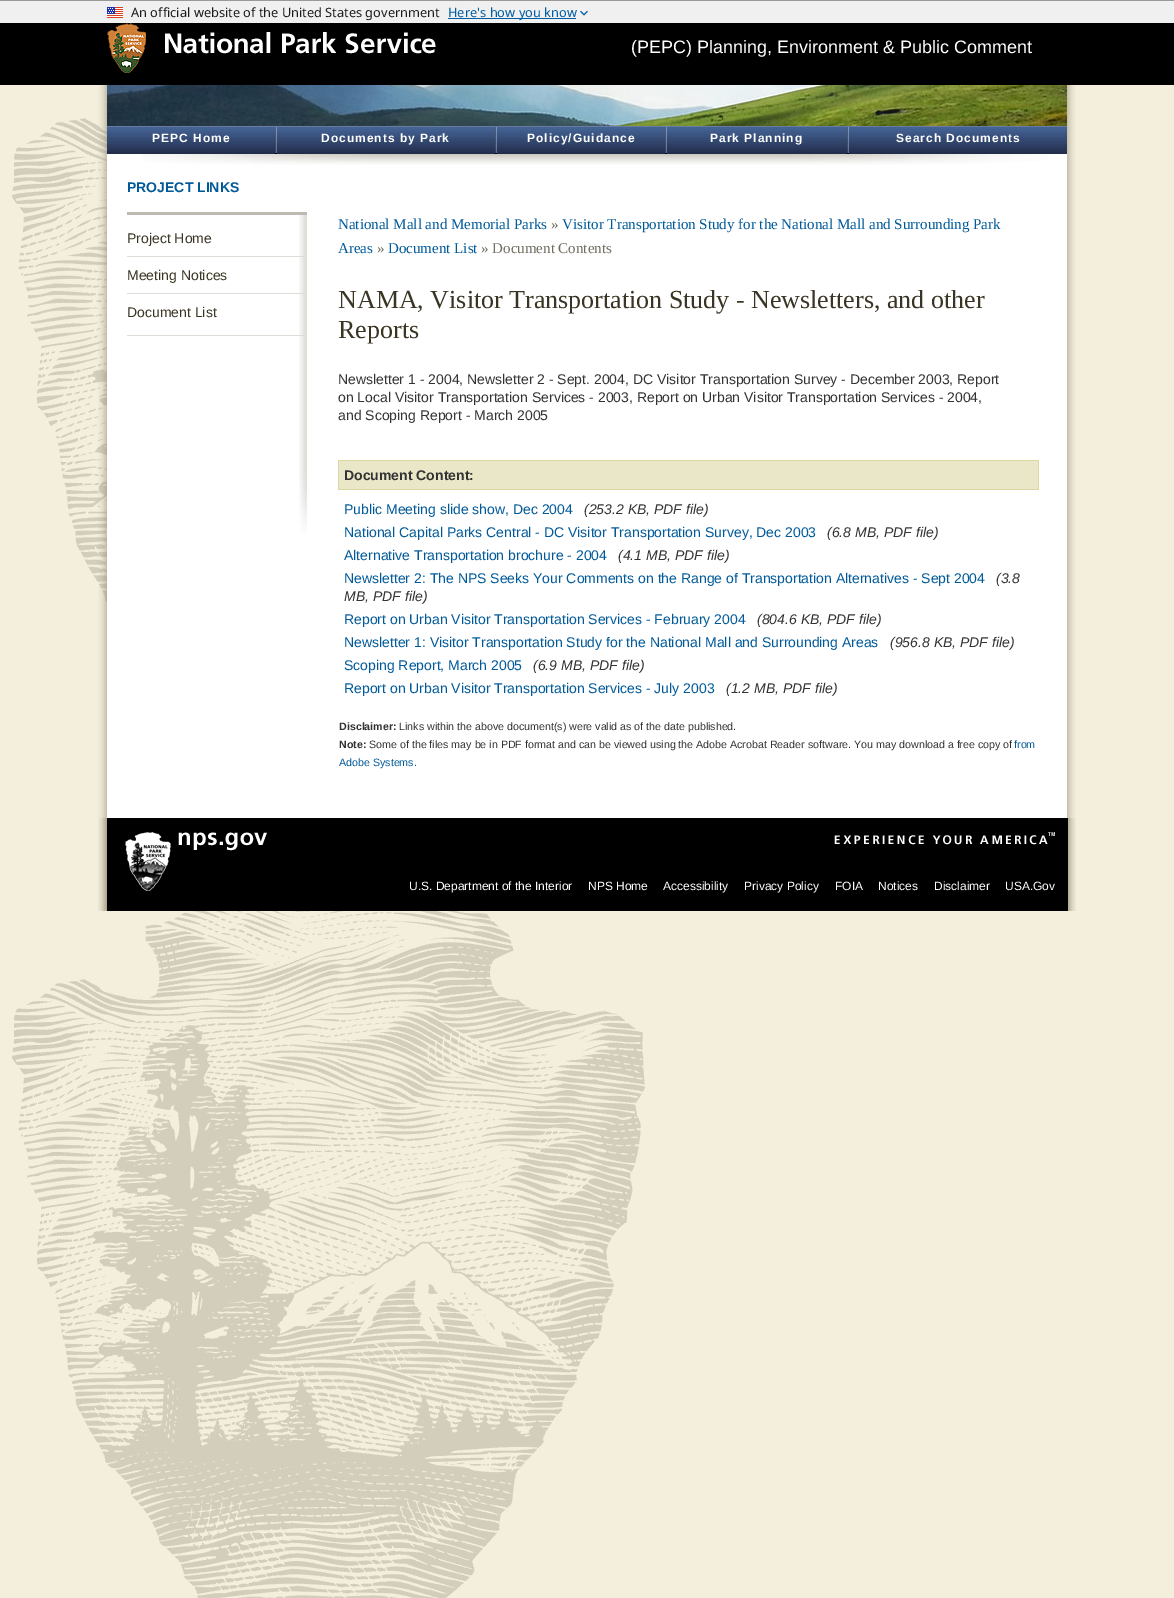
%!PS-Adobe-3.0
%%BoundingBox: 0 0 1174 1598
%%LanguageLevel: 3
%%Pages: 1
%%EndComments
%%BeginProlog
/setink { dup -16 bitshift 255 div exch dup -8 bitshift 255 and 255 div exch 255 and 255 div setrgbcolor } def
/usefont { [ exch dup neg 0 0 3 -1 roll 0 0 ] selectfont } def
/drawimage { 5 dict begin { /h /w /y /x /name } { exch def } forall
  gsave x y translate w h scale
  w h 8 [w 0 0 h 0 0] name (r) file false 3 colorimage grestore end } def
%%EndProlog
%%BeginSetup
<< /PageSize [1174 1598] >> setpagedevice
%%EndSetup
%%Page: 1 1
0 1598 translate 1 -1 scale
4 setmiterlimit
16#F4EFDD setink
0 0 1174 1598 rectfill
(img1.raw) 12 85 633 1513 drawimage
16#999999 setink
0 0 1174 1 rectfill
16#F0F0F0 setink
0 1 1174 22 rectfill
(img2.raw) 107 7 16 11 drawimage
/NotoSans-Regular 12.8 usefont
16#1B1B1B setink
131 17 moveto (An official website of the United States government) show
16#005EA2 setink
448 18 128 1 rectfill
448 17 moveto (Here's how you know) show
(img3.raw) 580 10 8 6 drawimage
16#000000 setink
0 23 1174 62 rectfill
(img4.raw) 107 23 329 50 drawimage
/LiberationSans-Regular 18 usefont
16#FFFFFF setink
631 53 moveto (\(PEPC\) Planning, Environment & Public Comment) show
(img5.raw) 98 85 978 84 drawimage
(img6.raw) 107 85 960 41 drawimage
(img7.raw) 107 127 960 26 drawimage
[
    [107 126 960 1 16#6B7A9F]
    [275 153 574 1 16#000000]
    [107 153 168 1 16#232D4C]
] { aload pop setink rectfill } forall
/LiberationSans-Bold 12 usefont
16#FFFFFF setink
152 142 moveto 1 0 (PEPC Home) ashow
(img8.raw) 275 127 2 26 drawimage
16#232D4C setink
277 153 218 1 rectfill
16#FFFFFF setink
321 142 moveto 1 0 (Documents by Park) ashow
(img8.raw) 495 127 2 26 drawimage
16#232D4C setink
497 153 168 1 rectfill
16#FFFFFF setink
527 142 moveto 1 0 (Policy/Guidance) ashow
(img8.raw) 665 127 2 26 drawimage
16#232D4C setink
667 153 180 1 rectfill
16#FFFFFF setink
710 142 moveto 1 0 (Park Planning) ashow
(img8.raw) 847 127 2 26 drawimage
16#232D4C setink
849 153 218 1 rectfill
16#FFFFFF setink
896 142 moveto 1 0 (Search Documents) ashow
(img9.raw) 107 154 960 15 drawimage
(img10.raw) 98 169 978 742 drawimage
107 169 960 649 rectfill
16#BDBBB1 setink
127 212 180 3 rectfill
/LiberationSans-Bold 14 usefont
16#005999 setink
127 192 moveto (PROJECT LINKS) show
(img11.raw) 299 215 8 319 drawimage
16#DEDDD8 setink
127 335 180 1 rectfill
127 256 180 1 rectfill
/LiberationSans-Regular 14 usefont
16#393423 setink
127 243 moveto (Project Home) show
16#DEDDD8 setink
127 293 180 1 rectfill
16#393423 setink
127 280 moveto (Meeting Notices) show
127 317 moveto (Document List) show
/LiberationSerif-Regular 15 usefont
16#005999 setink
338 229 moveto (National Mall and Memorial Parks) show
16#706D5F setink
551 229 moveto (») show
16#005999 setink
562 229 moveto (Visitor Transportation Study for the National Mall and Surrounding Park) show
338 253 moveto (Areas) show
16#706D5F setink
377 253 moveto (») show
16#005999 setink
388 253 moveto (Document List) show
16#706D5F setink
481 253 moveto (» Document Contents) show
/LiberationSerif-Regular 26 usefont
16#393423 setink
338 308 moveto (NAMA, Visitor Transportation Study - Newsletters, and other) show
338 338 moveto (Reports) show
/LiberationSans-Regular 14 usefont
16#333333 setink
[
    [(Newsletter 1 - 2004, Newsletter 2 - Sept. 2004, DC Visitor Transportation Survey - December 2003, Report) 338 384]
    [(on Local Visitor Transportation Services - 2003, Report on Urban Visitor Transportation Services - 2004,) 338 402]
    [(and Scoping Report - March 2005) 338 420]
] { aload pop moveto show } forall
[
    [339 461 699 28 16#E9E7C7]
    [338 460 701 1 16#DBD8A4]
    [1038 460 1 30 16#DBD8A4]
    [338 489 701 1 16#DBD8A4]
    [338 460 1 30 16#DBD8A4]
] { aload pop setink rectfill } forall
/LiberationSans-Bold 14 usefont
16#333333 setink
344 480 moveto (Document Content:) show
/LiberationSans-Regular 14 usefont
16#005999 setink
344 514 moveto (Public Meeting slide show, Dec 2004) show
/LiberationSans-Italic 14 usefont
16#333333 setink
584 514 moveto (\(253.2 KB, PDF file\)) show
/LiberationSans-Regular 14 usefont
16#005999 setink
344 537 moveto (National Capital Parks Central - DC Visitor Transportation Survey, Dec 2003) show
/LiberationSans-Italic 14 usefont
16#333333 setink
827 537 moveto (\(6.8 MB, PDF file\)) show
/LiberationSans-Regular 14 usefont
16#005999 setink
344 560 moveto (Alternative Transportation brochure - 2004) show
/LiberationSans-Italic 14 usefont
16#333333 setink
618 560 moveto (\(4.1 MB, PDF file\)) show
/LiberationSans-Regular 14 usefont
16#005999 setink
344 583 moveto (Newsletter 2: The NPS Seeks Your Comments on the Range of Transportation Alternatives - Sept 2004) show
/LiberationSans-Italic 14 usefont
16#333333 setink
996 583 moveto (\(3.8) show
344 601 moveto (MB, PDF file\)) show
/LiberationSans-Regular 14 usefont
16#005999 setink
344 624 moveto (Report on Urban Visitor Transportation Services - February 2004) show
/LiberationSans-Italic 14 usefont
16#333333 setink
757 624 moveto (\(804.6 KB, PDF file\)) show
/LiberationSans-Regular 14 usefont
16#005999 setink
344 647 moveto (Newsletter 1: Visitor Transportation Study for the National Mall and Surrounding Areas) show
/LiberationSans-Italic 14 usefont
16#333333 setink
890 647 moveto (\(956.8 KB, PDF file\)) show
/LiberationSans-Regular 14 usefont
16#005999 setink
344 670 moveto (Scoping Report, March 2005) show
/LiberationSans-Italic 14 usefont
16#333333 setink
533 670 moveto (\(6.9 MB, PDF file\)) show
/LiberationSans-Regular 14 usefont
16#005999 setink
344 693 moveto (Report on Urban Visitor Transportation Services - July 2003) show
/LiberationSans-Italic 14 usefont
16#333333 setink
726 693 moveto (\(1.2 MB, PDF file\)) show
/LiberationSans-Bold 10.67 usefont
339 730 moveto (Disclaimer:) show
/LiberationSans-Regular 10.67 usefont
399 730 moveto (Links within the above document\(s\) were valid as of the date published.) show
/LiberationSans-Bold 10.67 usefont
339 748 moveto (Note:) show
/LiberationSans-Regular 10.67 usefont
369 748 moveto (Some of the files may be in PDF format and can be viewed using the Adobe Acrobat Reader software. You may download a free copy of) show
16#005999 setink
1014 748 moveto (from) show
339 766 moveto (Adobe Systems.) show
(img12.raw) 98 818 978 93 drawimage
16#000000 setink
107 818 961 93 rectfill
(img13.raw) 125 832 46 59 drawimage
(img14.raw) 178 832 89 19 drawimage
(img15.raw) 834 832 221 13 drawimage
/LiberationSans-Regular 12 usefont
16#FFFFFF setink
[
    [(U.S. Department of the Interior) 409 890]
    [(NPS Home) 588 890]
    [(Accessibility) 663 890]
    [(Privacy Policy) 744 890]
    [(FOIA) 835 890]
    [(Notices) 878 890]
    [(Disclaimer) 934 890]
    [(USA.Gov) 1005 890]
] { aload pop moveto show } forall
showpage
%%EOF
